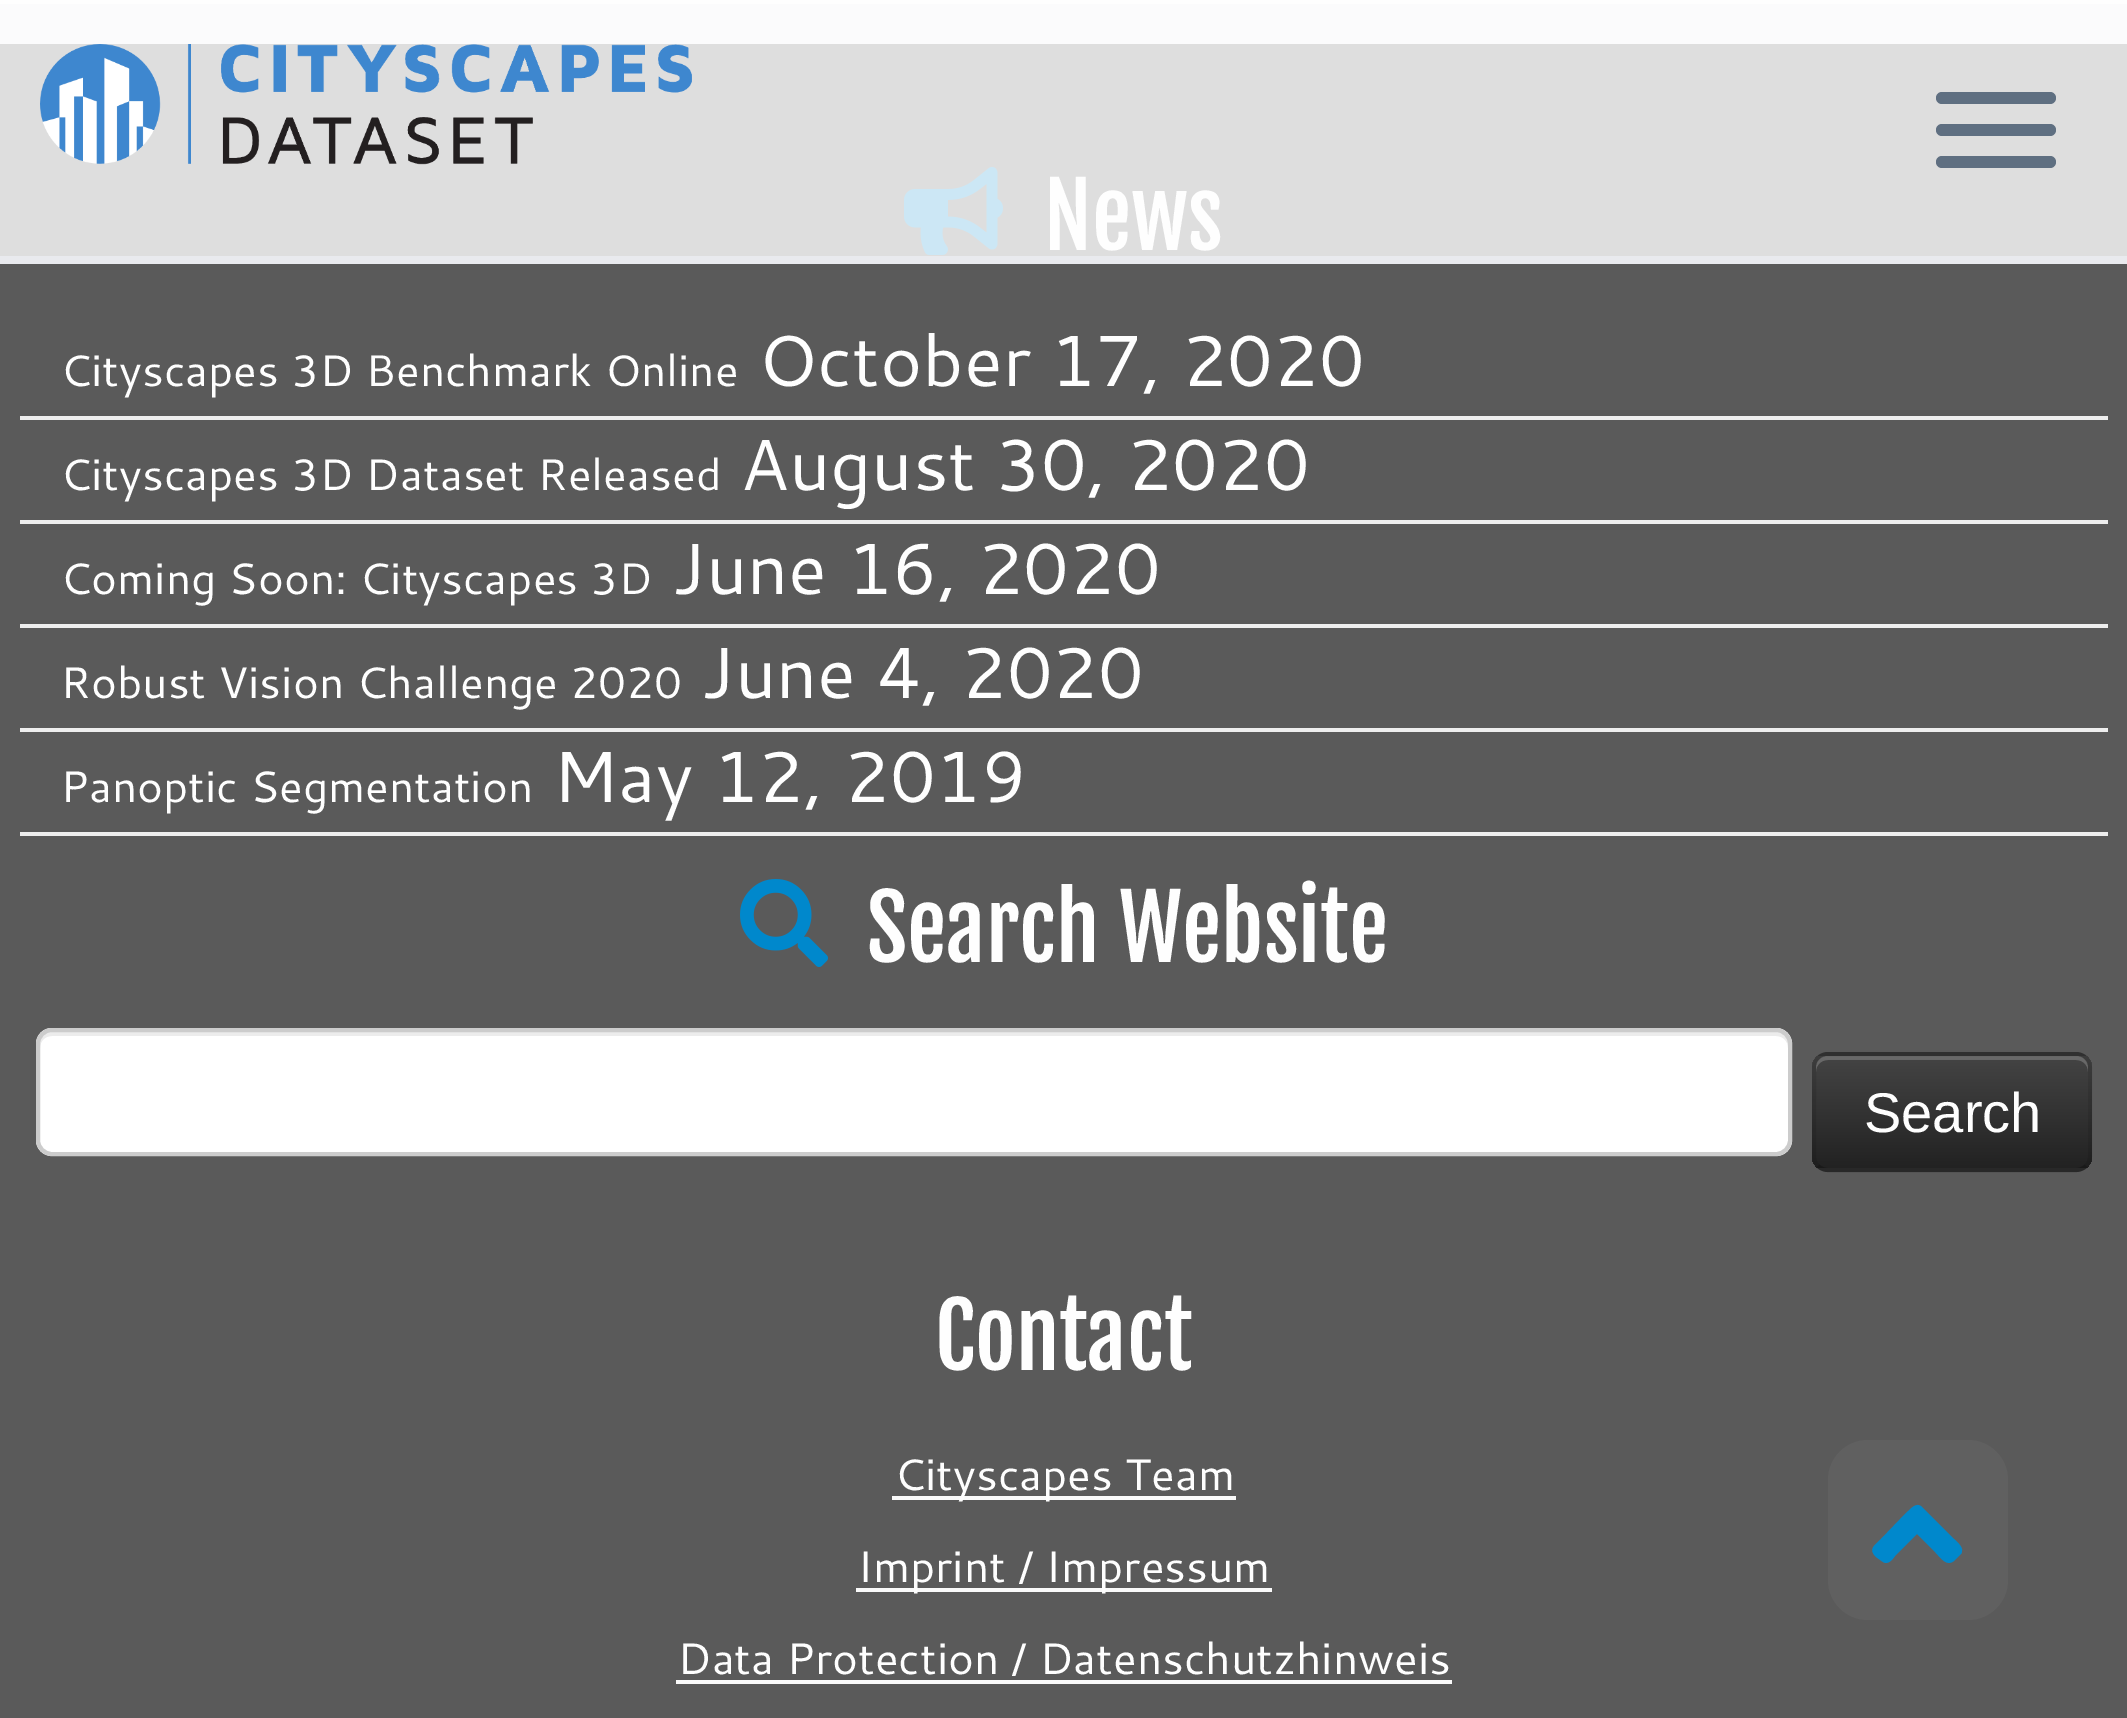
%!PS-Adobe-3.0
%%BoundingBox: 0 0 2127 1718
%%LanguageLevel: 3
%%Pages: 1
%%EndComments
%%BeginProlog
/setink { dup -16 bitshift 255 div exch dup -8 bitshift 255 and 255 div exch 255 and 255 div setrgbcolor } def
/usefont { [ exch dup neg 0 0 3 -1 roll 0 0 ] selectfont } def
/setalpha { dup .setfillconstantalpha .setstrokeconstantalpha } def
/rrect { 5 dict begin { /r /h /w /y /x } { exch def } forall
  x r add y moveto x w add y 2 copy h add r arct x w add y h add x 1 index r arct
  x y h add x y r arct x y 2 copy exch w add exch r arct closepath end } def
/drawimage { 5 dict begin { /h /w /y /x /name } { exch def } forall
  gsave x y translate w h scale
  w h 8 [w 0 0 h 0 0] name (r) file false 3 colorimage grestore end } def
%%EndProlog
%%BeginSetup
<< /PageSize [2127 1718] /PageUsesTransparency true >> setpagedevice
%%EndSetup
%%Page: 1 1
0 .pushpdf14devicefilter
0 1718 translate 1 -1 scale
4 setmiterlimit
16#FEFEFE setink
0 0 2127 1718 rectfill
16#E9EAEE setink
0 256 2127 8 rectfill
16#DEDEDE setink
0 44 2127 212 rectfill
(img1.raw) 40 44 652 121 drawimage
16#5F6F81 setink
1936 92 120 12 6 rrect fill
1936 124 120 12 6 rrect fill
1936 156 120 12 6 rrect fill
16#5A5A5A setink
0 264 2127 1454 rectfill
16#FBFBFC setink
0 4 2127 40 rectfill
(img2.raw) 904 167 99 88 drawimage
/FjallaOne-Regular 88 usefont
16#FEFEFE setink
1044 250 moveto (News) show
16#EEEEEE setink
20 416 2088 4 rectfill
/Cantarell-Regular 44 usefont
16#FEFEFE setink
60 386 moveto (Cityscapes 3D Benchmark Online) show
/Cantarell-Regular 72 usefont
758 386 moveto (October 17, 2020) show
16#EEEEEE setink
20 520 2088 4 rectfill
/Cantarell-Regular 44 usefont
16#FEFEFE setink
60 490 moveto (Cityscapes 3D Dataset Released) show
/Cantarell-Regular 72 usefont
740 490 moveto (August 30, 2020) show
16#EEEEEE setink
20 624 2088 4 rectfill
/Cantarell-Regular 44 usefont
16#FEFEFE setink
60 594 moveto (Coming Soon: Cityscapes 3D) show
/Cantarell-Regular 72 usefont
672 594 moveto (June 16, 2020) show
16#EEEEEE setink
20 728 2088 4 rectfill
/Cantarell-Regular 44 usefont
16#FEFEFE setink
60 698 moveto (Robust Vision Challenge 2020) show
/Cantarell-Regular 72 usefont
701 698 moveto (June 4, 2020) show
16#EEEEEE setink
20 832 2088 4 rectfill
/Cantarell-Regular 44 usefont
16#FEFEFE setink
60 802 moveto (Panoptic Segmentation) show
/Cantarell-Regular 72 usefont
552 802 moveto (May 12, 2019) show
(img3.raw) 740 879 88 88 drawimage
/FjallaOne-Regular 88 usefont
867 962 moveto (Search Website) show
16#FFFFFF setink
36 1028 1756 128 16 rrect fill
16#ECECEC setink
52 1036 moveto 1776 1036 lineto 1783 1036 1788 1041 1788 1048 curveto 1788 1044 lineto 1788 1037 1783 1032 1776 1032 curveto 52 1032 lineto 45 1032 40 1037 40 1044 curveto 40 1048 lineto 40 1041 45 1036 52 1036 curveto closepath fill
16#CCCCCC setink
4 setlinewidth
38 1030 1752 124 14 rrect stroke
16#363636 setink
1812 1052 280 120 16 rrect fill
gsave
1812 1052 280 120 16 rrect clip newpath
gsave 1812 1056 moveto 2092 1056 lineto 2092 1168 lineto 1812 1168 lineto closepath clip newpath
<< /ShadingType 2 /ColorSpace /DeviceRGB /Coords [1952 1056 1952 1168] /Extend [true true] /Function << /FunctionType 2 /Domain [0 1] /C0 [0.267 0.267 0.267] /C1 [0.133 0.133 0.133] /N 1 >> >> shfill grestore
grestore
0.2 setalpha
16#FFFFFF setink
1828 1060 moveto 2076 1060 lineto 2083 1060 2088 1065 2088 1072 curveto 2088 1068 lineto 2088 1061 2083 1056 2076 1056 curveto 1828 1056 lineto 1821 1056 1816 1061 1816 1068 curveto 1816 1072 lineto 1816 1065 1821 1060 1828 1060 curveto closepath fill
0.25 setalpha
16#000000 setink
2086 1166 moveto 2083.5 1168.5 2079.5 1170 2076 1170 curveto 1828 1170 lineto 1824.5 1170 1820.5 1168.5 1818 1166 curveto stroke
0.1 setalpha
1818 1166 moveto 1815.5 1163.5 1814 1159.5 1814 1156 curveto 1814 1068 lineto 1814 1064.5 1815.5 1060.5 1818 1058 curveto 1820.5 1055.5 1824.5 1054 1828 1054 curveto 2076 1054 lineto 2079.5 1054 2083.5 1055.5 2086 1058 curveto 2088.5 1060.5 2090 1064.5 2090 1068 curveto 2090 1156 lineto 2090 1159.5 2088.5 1163.5 2086 1166 curveto stroke
/LiberationSans-Regular 56 usefont
1 setalpha
16#FEFEFE setink
1864 1132 moveto (Search) show
/FjallaOne-Regular 88 usefont
935 1370 moveto (Contact) show
16#FAFAFA setink
892 1496 344 4 rectfill
/Cantarell-Regular 44 usefont
16#FEFEFE setink
894 1490 moveto (Cityscapes Team) show
16#FAFAFA setink
856 1588 416 4 rectfill
16#FEFEFE setink
857 1582 moveto (Imprint / Impressum) show
677 1674 moveto (Data Protection / Datenschutzhinweis) show
16#FAFAFA setink
676 1680 776 4 rectfill
16#606060 setink
1828 1440 180 180 40 rrect fill
16#0088CC setink
1922 1507 moveto 1954 1539 lineto 1957 1542 1965 1548 1961 1554 curveto 1955 1560 lineto 1947 1568 1941 1558 1935 1552 curveto 1917 1534 lineto 1895 1556 lineto 1892 1560 1888 1565 1883 1562 curveto 1876 1557 lineto 1868 1549 1874 1546 1881 1539 curveto 1906 1513 lineto 1910 1510 1916 1501 1922 1507 curveto closepath fill
.poppdf14devicefilter showpage
%%EOF
